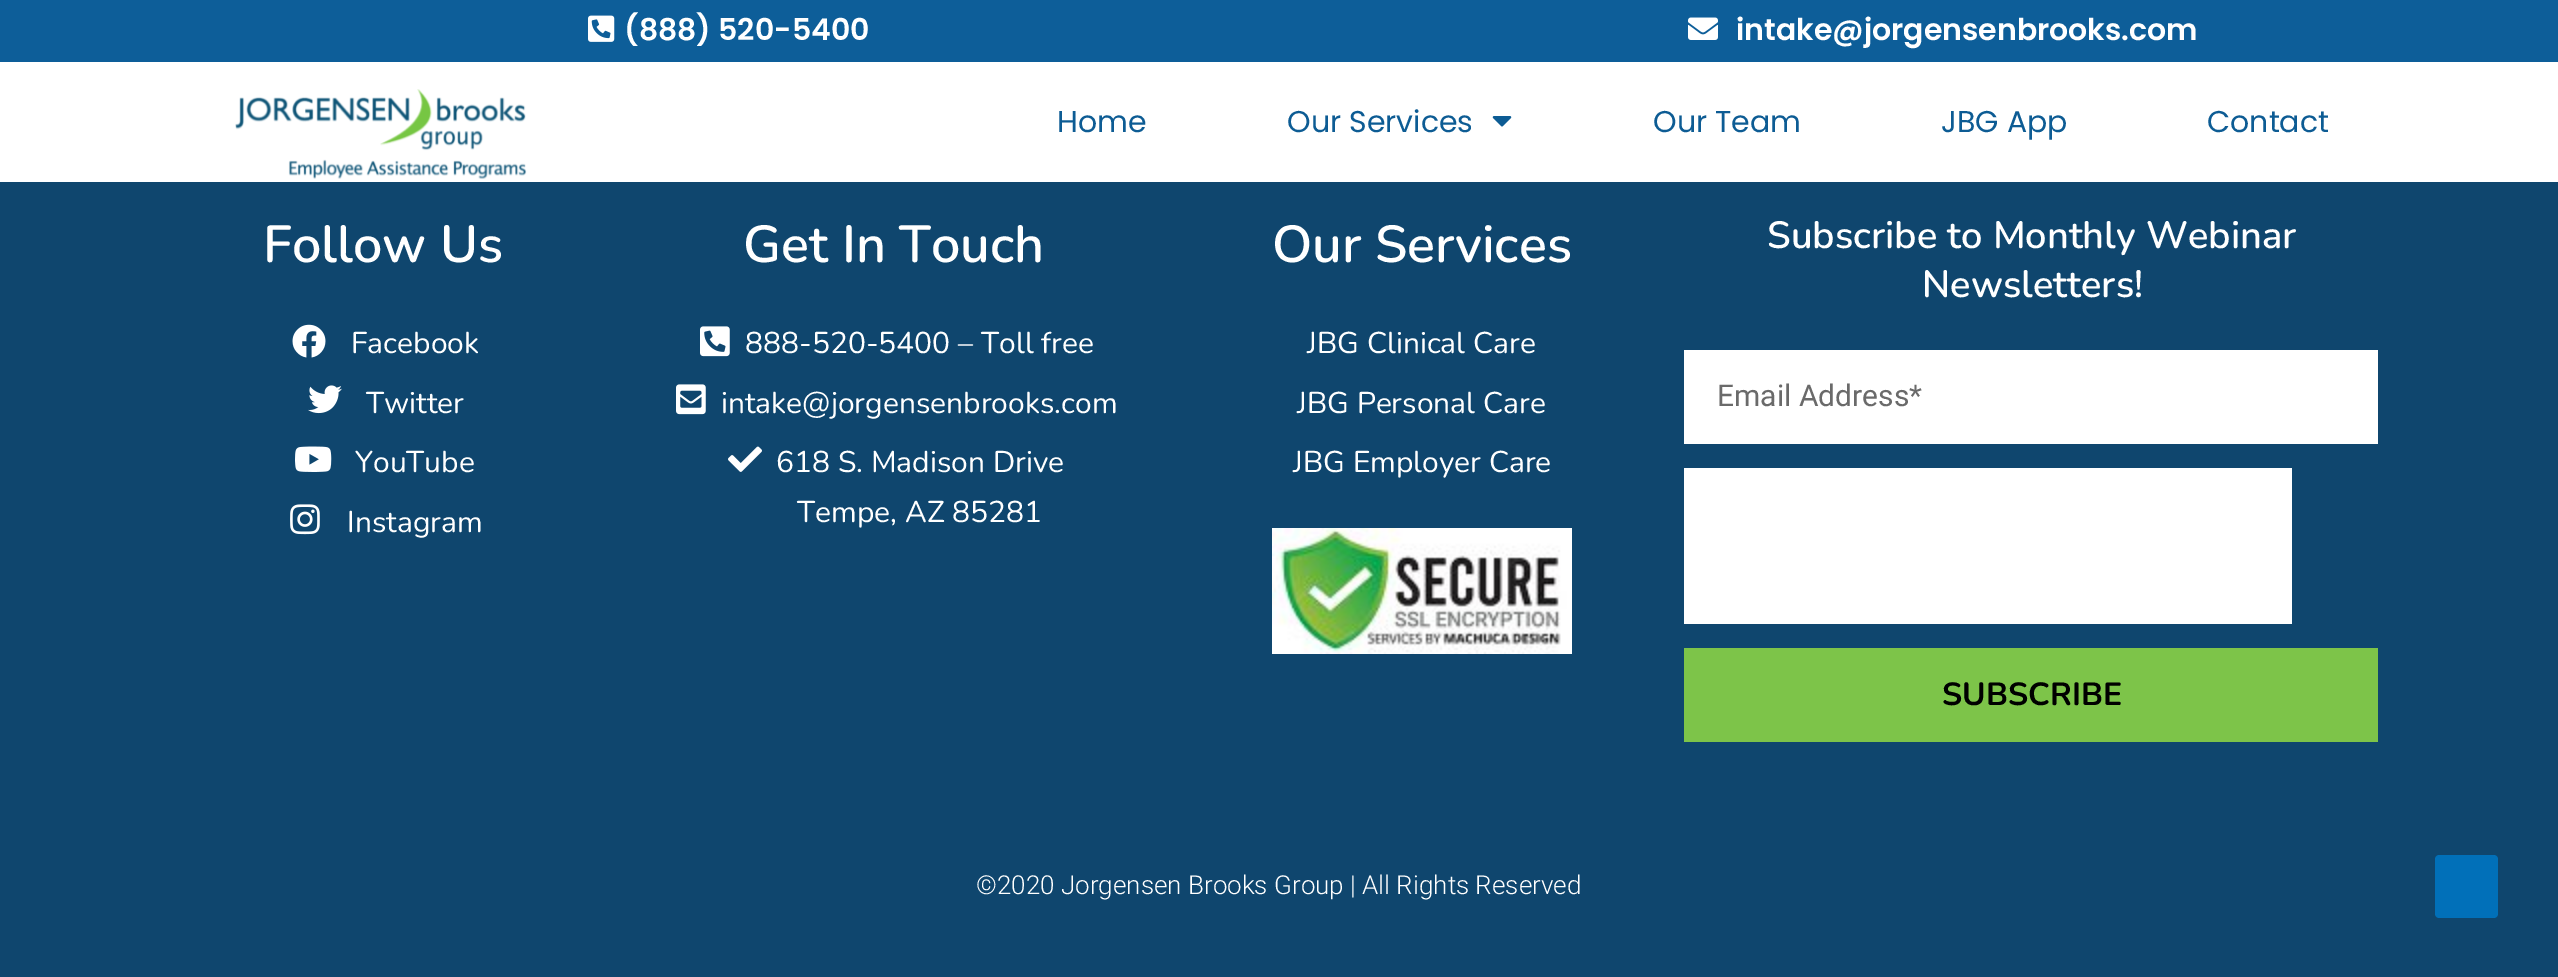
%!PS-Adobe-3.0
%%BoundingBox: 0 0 2558 977
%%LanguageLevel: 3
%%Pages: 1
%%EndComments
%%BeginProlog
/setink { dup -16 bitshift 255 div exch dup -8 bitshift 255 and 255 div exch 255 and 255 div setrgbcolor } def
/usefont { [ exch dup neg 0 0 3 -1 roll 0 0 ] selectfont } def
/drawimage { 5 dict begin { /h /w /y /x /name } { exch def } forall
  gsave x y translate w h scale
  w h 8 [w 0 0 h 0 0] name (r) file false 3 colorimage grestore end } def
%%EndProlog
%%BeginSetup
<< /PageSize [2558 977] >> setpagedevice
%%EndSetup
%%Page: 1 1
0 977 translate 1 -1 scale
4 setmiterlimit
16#0F466E setink
0 0 2558 977 rectfill
16#0D5E99 setink
0 0 2558 62 rectfill
(img1.raw) 588 15 27 27 drawimage
/Poppins-SemiBold 30 usefont
16#FFFFFF setink
624 40 moveto (\(888\) 520-5400) show
(img2.raw) 1688 17 30 23 drawimage
1736 40 moveto (intake@jorgensenbrooks.com) show
0 62 2558 120 rectfill
(img3.raw) 235 89 292 90 drawimage
/Poppins-Regular 30 usefont
16#0D5C94 setink
1057 132 moveto (Home) show
1287 132 moveto (Our Services) show
(img4.raw) 1492 116 20 11 drawimage
[
    [(Our Team) 1653 132]
    [(JBG App) 1941 132]
    [(Contact) 2207 132]
] { aload pop moveto show } forall
/Nunito-SemiBold 52 usefont
16#FFFFFF setink
263 262 moveto (Follow Us) show
(img5.raw) 292 324 34 34 drawimage
/Nunito-Regular 30 usefont
351 353 moveto (Facebook) show
(img6.raw) 308 385 34 29 drawimage
366 413 moveto (Twitter) show
(img7.raw) 295 446 37 26 drawimage
355 472 moveto (YouTube) show
(img8.raw) 290 504 30 31 drawimage
347 532 moveto (Instagram) show
/Nunito-SemiBold 52 usefont
743 262 moveto (Get In Touch) show
(img9.raw) 700 326 30 31 drawimage
/Nunito-Regular 30 usefont
745 353 moveto (888-520-5400 – Toll free) show
(img10.raw) 676 384 30 31 drawimage
721 413 moveto (intake@jorgensenbrooks.com) show
(img11.raw) 728 446 34 26 drawimage
776 472 moveto (618 S. Madison Drive) show
797 522 moveto (Tempe, AZ 85281) show
/Nunito-SemiBold 52 usefont
1272 262 moveto (Our Services) show
/Nunito-Regular 30 usefont
[
    [(JBG Clinical Care) 1307 353]
    [(JBG Personal Care) 1297 413]
    [(JBG Employer Care) 1293 472]
] { aload pop moveto show } forall
(img12.raw) 1272 528 300 126 drawimage
/Nunito-SemiBold 38 usefont
1767 248 moveto (Subscribe to Monthly Webinar) show
1922 297 moveto (Newsletters!) show
1684 350 694 94 rectfill
/Roboto-Regular 30 usefont
16#6A6A6A setink
1717 406 moveto (Email Address*) show
16#FFFFFF setink
1684 468 608 156 rectfill
16#7DC449 setink
1684 648 694 94 rectfill
/Nunito-Bold 32 usefont
16#000000 setink
1942 705 moveto (SUBSCRIBE) show
/Roboto-Light 26 usefont
16#FFFFFF setink
976 894 moveto (©2020 Jorgensen Brooks Group | All Rights Reserved) show
16#0170B9 setink
2494 918 moveto 2439 918 lineto 2437 918 2435 916 2435 914 curveto 2435 859 lineto 2435 857 2437 855 2439 855 curveto 2494 855 lineto 2496 855 2498 857 2498 859 curveto 2498 914 lineto 2498 916 2496 918 2494 918 curveto closepath fill
showpage
%%EOF
